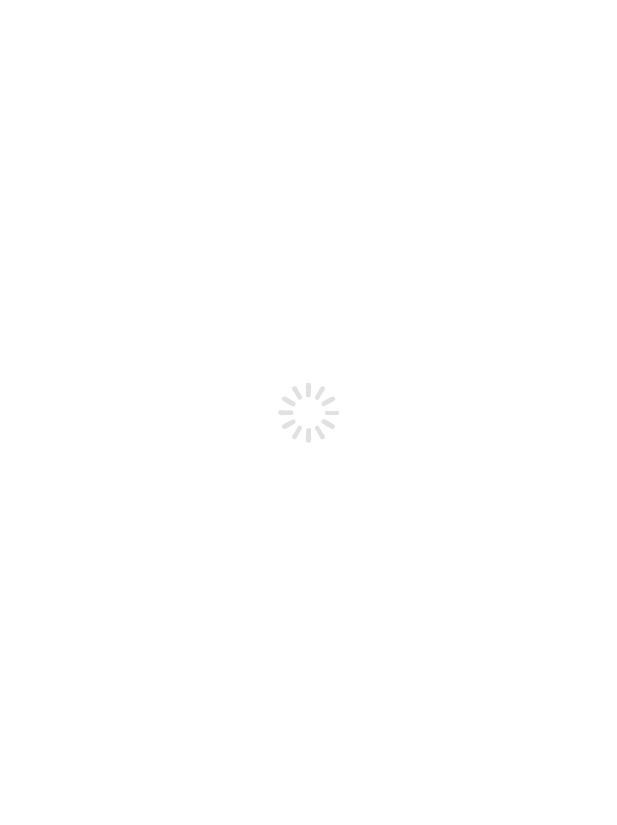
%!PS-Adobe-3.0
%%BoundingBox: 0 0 617 825
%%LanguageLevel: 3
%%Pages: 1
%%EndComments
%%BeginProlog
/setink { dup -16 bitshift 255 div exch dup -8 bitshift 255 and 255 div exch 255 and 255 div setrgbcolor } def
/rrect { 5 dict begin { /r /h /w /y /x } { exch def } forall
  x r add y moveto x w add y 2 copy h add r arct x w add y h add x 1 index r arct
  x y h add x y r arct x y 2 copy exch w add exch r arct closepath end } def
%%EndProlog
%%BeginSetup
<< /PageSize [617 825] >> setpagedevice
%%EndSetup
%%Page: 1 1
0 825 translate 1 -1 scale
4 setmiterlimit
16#FFFFFF setink
0 0 617 825 rectfill
16#E1E1E1 setink
325 419.5 moveto 331 423 lineto 332.5 424 336.5 425.5 334 428.5 curveto 332.5 430 330 427.5 328.5 427 curveto 322 423 lineto 320.5 421 323 418.5 325 419.5 curveto closepath fill
319 427 moveto 322.5 433 lineto 324 434.5 326.5 438 323 439 curveto 320.5 440 319.5 436.5 319 435 curveto 315 428.5 lineto 315 426 318 425 319 427 curveto closepath 311 430 moveto 311 437 lineto 311 439.5 311.5 443.5 308 442.5 curveto 305.5 442 306 439 306 437 curveto 306.5 429.5 lineto 307 427.5 311 428 311 430 curveto closepath 301.5 429 moveto 298 435 lineto 297 437 295.5 440.5 293 438.5 curveto 291 437 293.5 434 294.5 433 curveto 298.5 426 lineto 300 425 303 427 301.5 429 curveto closepath fill
294.5 423.5 moveto 288.5 427 lineto 286.5 428 283.5 430.5 282 427 curveto 281.5 425 285 424 286 423 curveto 293 419.5 lineto 295 419 296.5 422.5 294.5 423.5 curveto closepath 291 415 moveto 284 415 lineto 282 415 278 415.5 278.5 412 curveto 279 409.5 282.5 410.5 284 410.5 curveto 292 410.5 lineto 294 411.5 293.5 415 291 415 curveto closepath 292 406 moveto 286 402.5 lineto 284.5 401.5 280.5 400 283 397 curveto 284.5 395.5 287 398 288.5 398.5 curveto 295 402.5 lineto 296.5 404.5 294 407 292 406 curveto closepath fill
298 398.5 moveto 294.5 392.5 lineto 293 391 290.5 387.5 294 386.5 curveto 296.5 385.5 297.5 389 298 390.5 curveto 302 397 lineto 302 399.5 299 400.5 298 398.5 curveto closepath 306 395 moveto 306 388 lineto 306 386 305.5 382 309 383 curveto 311.5 383.5 311 386.5 311 388 curveto 310.5 396 lineto 310 398 306 397.5 306 395 curveto closepath 315.5 396.5 moveto 319 390.5 lineto 320 388.5 321.5 385 324 387 curveto 326 388.5 323.5 391.5 322.5 392.5 curveto 318.5 399.5 lineto 317 400.5 314 398.5 315.5 396.5 curveto closepath fill
322.5 402 moveto 328.5 398.5 lineto 330.5 397.5 333.5 395 335 398.5 curveto 335.5 400.5 332 401.5 331 402.5 curveto 324 406 lineto 322 406.5 320.5 403 322.5 402 curveto closepath fill
325 411 14 4 2 rrect fill
showpage
%%EOF
